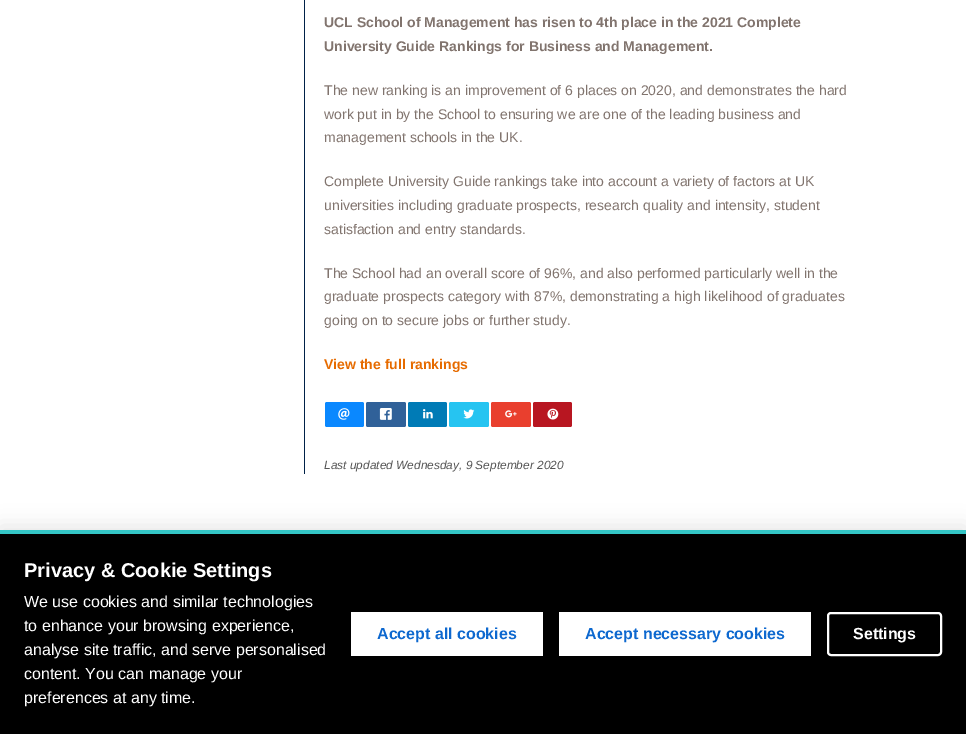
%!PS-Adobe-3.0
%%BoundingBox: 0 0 966 734
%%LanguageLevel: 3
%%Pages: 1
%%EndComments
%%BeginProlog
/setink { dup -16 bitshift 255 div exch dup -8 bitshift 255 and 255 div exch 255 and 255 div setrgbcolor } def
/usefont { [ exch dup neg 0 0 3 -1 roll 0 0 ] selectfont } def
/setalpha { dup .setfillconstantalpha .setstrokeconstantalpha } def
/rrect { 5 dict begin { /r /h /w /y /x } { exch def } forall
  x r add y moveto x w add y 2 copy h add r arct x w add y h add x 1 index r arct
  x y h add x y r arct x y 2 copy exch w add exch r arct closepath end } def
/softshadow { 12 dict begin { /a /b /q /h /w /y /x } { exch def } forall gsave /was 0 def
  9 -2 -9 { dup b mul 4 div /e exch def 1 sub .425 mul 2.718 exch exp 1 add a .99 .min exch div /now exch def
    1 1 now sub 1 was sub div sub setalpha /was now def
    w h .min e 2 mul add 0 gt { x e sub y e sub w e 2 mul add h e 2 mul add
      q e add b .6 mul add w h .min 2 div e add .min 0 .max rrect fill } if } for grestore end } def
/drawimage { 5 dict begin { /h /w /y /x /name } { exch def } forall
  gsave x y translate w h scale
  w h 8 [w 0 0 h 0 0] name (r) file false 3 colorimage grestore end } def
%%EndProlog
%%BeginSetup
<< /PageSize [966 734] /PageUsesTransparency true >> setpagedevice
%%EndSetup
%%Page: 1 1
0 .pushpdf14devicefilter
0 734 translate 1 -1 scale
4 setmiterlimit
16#FFFFFF setink
0 0 966 734 rectfill
16#002147 setink
304 0 1 474 rectfill
/LiberationSans-Bold 14 usefont
16#81746E setink
324 27 moveto (UCL School of Management has risen to 4th place in the 2021 Complete) show
324 51 moveto (University Guide Rankings for Business and Management.) show
/LiberationSans-Regular 14 usefont
[
    [(The new ranking is an improvement of 6 places on 2020, and demonstrates the hard) 324 95]
    [(work put in by the School to ensuring we are one of the leading business and) 324 119]
    [(management schools in the UK.) 324 142]
    [(Complete University Guide rankings take into account a variety of factors at UK) 324 186]
    [(universities including graduate prospects, research quality and intensity, student) 324 210]
    [(satisfaction and entry standards.) 324 234]
    [(The School had an overall score of 96%, and also performed particularly well in the) 324 278]
    [(graduate prospects category with 87%, demonstrating a high likelihood of graduates) 324 301]
    [(going on to secure jobs or further study.) 324 325]
] { aload pop moveto show } forall
/LiberationSans-Bold 14 usefont
16#E66B00 setink
324 369 moveto (View the full rankings) show
16#0A88FF setink
325 402 39 25 2 rrect fill
(img1.raw) 338 408 12 12 drawimage
16#306199 setink
366 402 40 25 2 rrect fill
(img2.raw) 379 408 13 12 drawimage
16#007BB6 setink
408 402 39 25 2 rrect fill
(img3.raw) 423 409 10 10 drawimage
16#26C4F1 setink
449 402 40 25 2 rrect fill
(img4.raw) 463 409 12 10 drawimage
16#E93F2E setink
491 402 40 25 2 rrect fill
(img5.raw) 505 410 12 8 drawimage
16#B81621 setink
533 402 39 25 2 rrect fill
(img6.raw) 547 408 12 12 drawimage
/LiberationSans-Italic 11.9 usefont
16#555555 setink
324 469 moveto (Last updated Wednesday, 9 September 2020) show
16#000000 setink
0 526 966 204 0 10 0.1 softshadow
0 534 966 200 rectfill
16#34C6C6 setink
0 530 966 4 rectfill
/LiberationSans-Bold 20 usefont
16#FFFFFF setink
24 577 moveto (Privacy & Cookie Settings) show
/LiberationSans-Regular 16 usefont
[
    [(We use cookies and similar technologies) 24 607]
    [(to enhance your browsing experience,) 24 631]
    [(analyse site traffic, and serve personalised) 24 655]
    [(content. You can manage your) 24 679]
    [(preferences at any time.) 24 703]
] { aload pop moveto show } forall
351 612 192 44 rectfill
/LiberationSans-Bold 16 usefont
16#0D68CF setink
377 639 moveto (Accept all cookies) show
16#FFFFFF setink
559 612 252 44 rectfill
16#0D68CF setink
585 639 moveto (Accept necessary cookies) show
16#FFFFFF setink
2 setlinewidth
828 613 113 42 3 rrect stroke
853 639 moveto (Settings) show
.poppdf14devicefilter showpage
%%EOF
